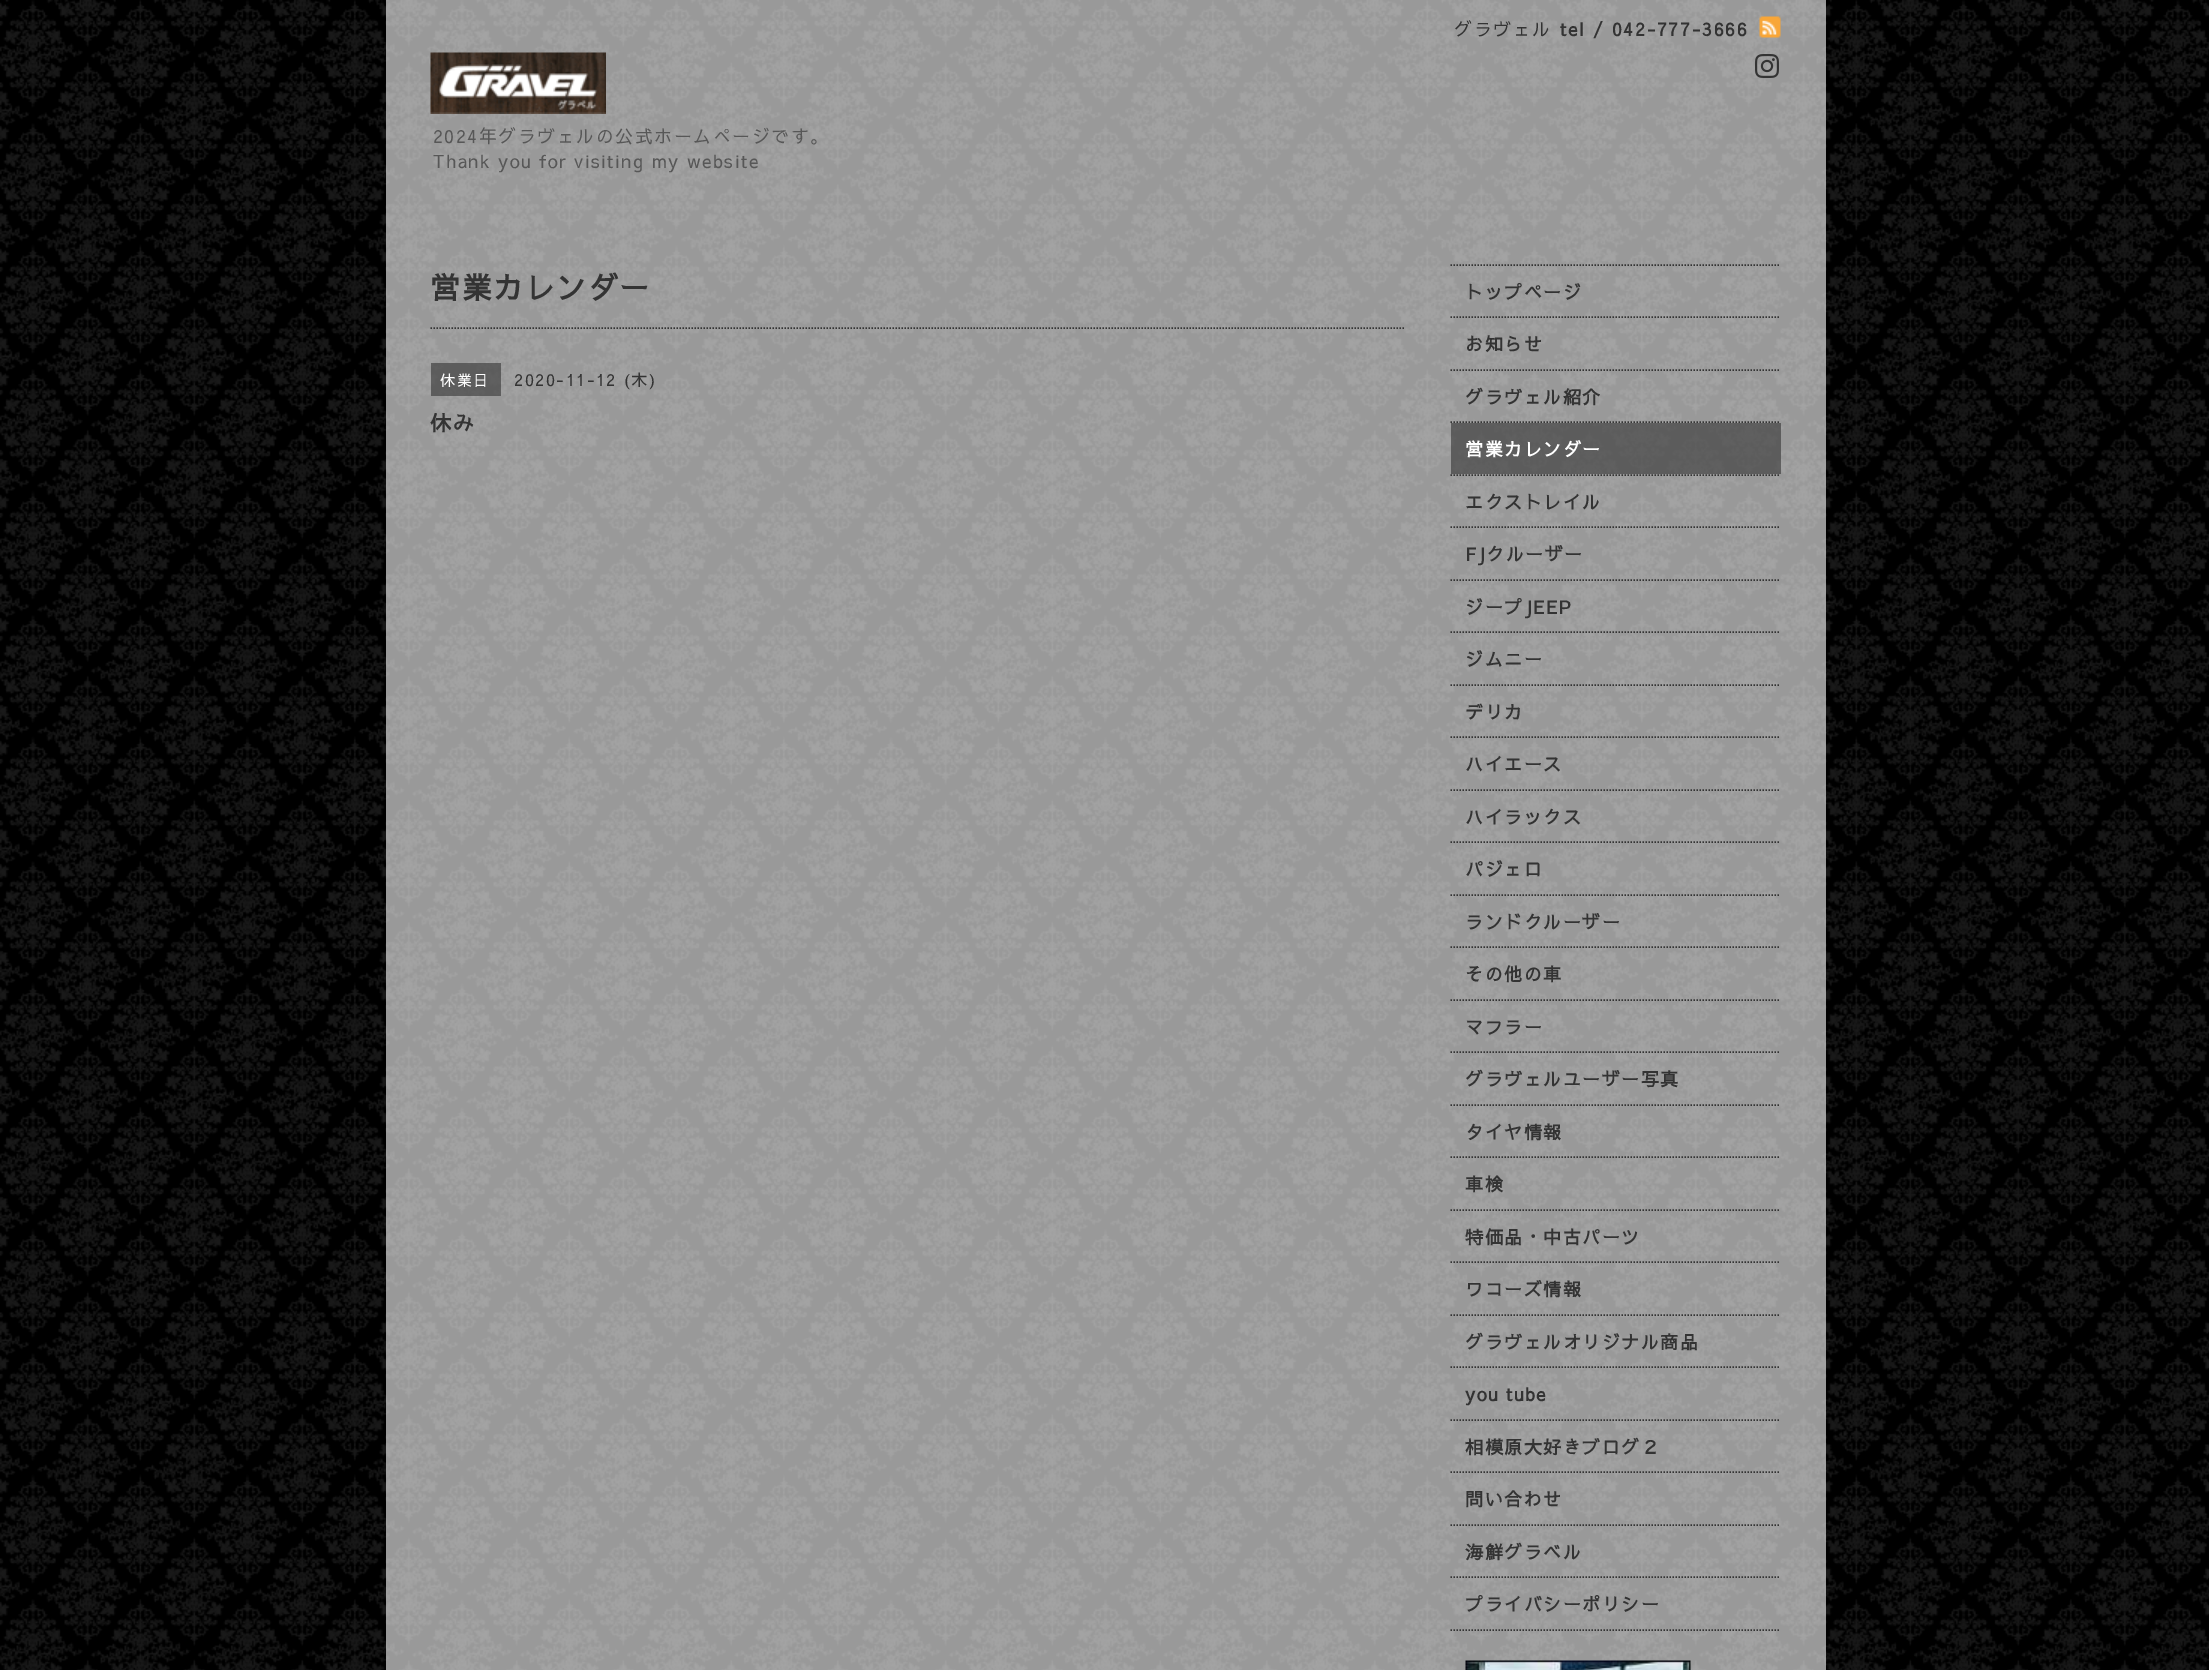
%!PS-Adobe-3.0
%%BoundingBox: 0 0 2209 1670
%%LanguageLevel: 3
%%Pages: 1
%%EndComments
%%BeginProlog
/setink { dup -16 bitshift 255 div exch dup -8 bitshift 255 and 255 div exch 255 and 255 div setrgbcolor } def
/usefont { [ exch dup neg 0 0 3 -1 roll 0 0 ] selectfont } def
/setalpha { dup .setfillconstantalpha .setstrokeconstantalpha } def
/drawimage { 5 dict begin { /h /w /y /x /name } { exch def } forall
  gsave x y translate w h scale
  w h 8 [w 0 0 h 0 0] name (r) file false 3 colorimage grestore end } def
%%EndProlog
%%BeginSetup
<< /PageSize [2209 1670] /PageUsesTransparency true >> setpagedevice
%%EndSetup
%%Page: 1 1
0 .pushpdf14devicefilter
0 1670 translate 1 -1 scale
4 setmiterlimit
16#FFFFFF setink
0 0 2209 1670 rectfill
(img1.raw) 0 0 2209 1670 drawimage
0.6 setalpha
386 0 1440 1670 rectfill
/SawarabiGothic-Regular 18 usefont
1 setalpha
16#333333 setink
1454 36 moveto 1.5 0 (グラヴェル) ashow
/SawarabiGothic-Bold 18 usefont
1560 36 moveto 1.75 0 (tel / 042-777-3666) ashow
(img2.raw) 1759 16 22 22 drawimage
(img3.raw) 1755 54 24 24 drawimage
(img4.raw) 430 52 176 62 drawimage
/SawarabiGothic-Regular 18 usefont
16#575757 setink
433 143 moveto 1.5 0 (2024年グラヴェルの公式ホームぺージです。) ashow
433 168 moveto 1.5 0 (Thank you for visiting my website) ashow
/SawarabiGothic-Bold 30 usefont
16#333333 setink
430 299 moveto 1.5 0 (営業カレンダー) ashow
1.5 setlinewidth
[1.5 1.5] 0 setdash
430.5 328 moveto 1405.5 328 lineto stroke
0.6 setalpha
431 363 70 33 rectfill
/SawarabiGothic-Regular 15 usefont
1 setalpha
16#FFFFFF setink
440 386 moveto 1.5 0 (休業日) ashow
/SawarabiGothic-Regular 16.5 usefont
16#333333 setink
514 386 moveto 1.5 0 (2020-11-12 \(木\)) ashow
/SawarabiGothic-Bold 21 usefont
430 431 moveto 1.5 0 (休み) ashow
1450.5 265 moveto 1780.5 265 lineto stroke
1450.5 317 moveto 1780.5 317 lineto stroke
/SawarabiGothic-Bold 18 usefont
1465 299 moveto 1.5 0 (トップページ) ashow
1450.5 370 moveto 1780.5 370 lineto stroke
1465 351 moveto 1.5 0 (お知らせ) ashow
1450.5 422 moveto 1780.5 422 lineto stroke
1465 404 moveto 1.5 0 (グラヴェル紹介) ashow
1450.5 475 moveto 1780.5 475 lineto stroke
0.6 setalpha
1451 423 330 51 rectfill
1 setalpha
16#FFFFFF setink
1465 456 moveto 1.5 0 (営業カレンダー) ashow
16#333333 setink
1450.5 527 moveto 1780.5 527 lineto stroke
1465 509 moveto 1.5 0 (エクストレイル) ashow
1450.5 580 moveto 1780.5 580 lineto stroke
1465 561 moveto 1.5 0 (FJクルーザー) ashow
1450.5 632 moveto 1780.5 632 lineto stroke
1465 614 moveto 1.5 0 (ジープJEEP) ashow
1450.5 685 moveto 1780.5 685 lineto stroke
1465 666 moveto 1.5 0 (ジムニー) ashow
1450.5 737 moveto 1780.5 737 lineto stroke
1465 719 moveto 1.5 0 (デリカ) ashow
1450.5 790 moveto 1780.5 790 lineto stroke
1465 771 moveto 1.5 0 (ハイエース) ashow
1450.5 842 moveto 1780.5 842 lineto stroke
1465 824 moveto 1.5 0 (ハイラックス) ashow
1450.5 895 moveto 1780.5 895 lineto stroke
1465 876 moveto 1.5 0 (パジェロ) ashow
1450.5 947 moveto 1780.5 947 lineto stroke
1465 929 moveto 1.5 0 (ランドクルーザー) ashow
1450.5 1000 moveto 1780.5 1000 lineto stroke
1465 981 moveto 1.5 0 (その他の車) ashow
1450.5 1052 moveto 1780.5 1052 lineto stroke
1465 1034 moveto 1.5 0 (マフラー) ashow
1450.5 1105 moveto 1780.5 1105 lineto stroke
1465 1086 moveto 1.5 0 (グラヴェルユーザー写真) ashow
1450.5 1157 moveto 1780.5 1157 lineto stroke
1465 1139 moveto 1.5 0 (タイヤ情報) ashow
1450.5 1210 moveto 1780.5 1210 lineto stroke
1465 1191 moveto 1.5 0 (車検) ashow
1450.5 1262 moveto 1780.5 1262 lineto stroke
1465 1244 moveto 1.5 0 (特価品・中古パーツ) ashow
1450.5 1315 moveto 1780.5 1315 lineto stroke
1465 1296 moveto 1.5 0 (ワコーズ情報) ashow
1450.5 1367 moveto 1780.5 1367 lineto stroke
1465 1349 moveto 1.5 0 (グラヴェルオリジナル商品) ashow
1450.5 1420 moveto 1780.5 1420 lineto stroke
1465 1401 moveto 1.5 0 (you tube) ashow
1450.5 1472 moveto 1780.5 1472 lineto stroke
1465 1454 moveto 1.5 0 (相模原大好きブログ２) ashow
1450.5 1525 moveto 1780.5 1525 lineto stroke
1465 1506 moveto 1.5 0 (問い合わせ) ashow
1450.5 1577 moveto 1780.5 1577 lineto stroke
1465 1559 moveto 1.5 0 (海鮮グラベル) ashow
1450.5 1630 moveto 1780.5 1630 lineto stroke
1465 1611 moveto 1.5 0 (プライバシーポリシー) ashow
(img5.raw) 1465 1660 226 10 drawimage
.poppdf14devicefilter showpage
%%EOF
